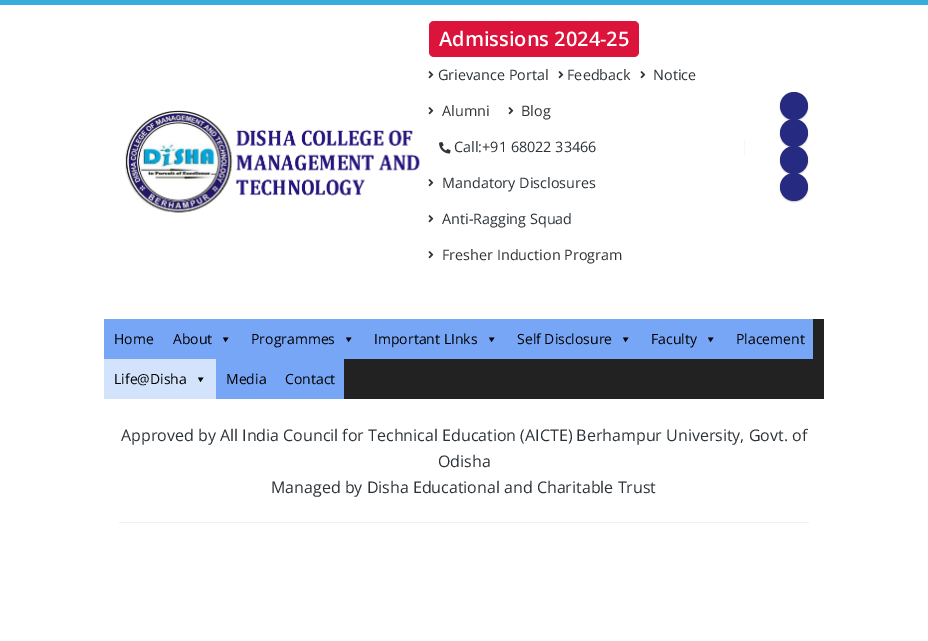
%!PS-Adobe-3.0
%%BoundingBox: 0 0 928 641
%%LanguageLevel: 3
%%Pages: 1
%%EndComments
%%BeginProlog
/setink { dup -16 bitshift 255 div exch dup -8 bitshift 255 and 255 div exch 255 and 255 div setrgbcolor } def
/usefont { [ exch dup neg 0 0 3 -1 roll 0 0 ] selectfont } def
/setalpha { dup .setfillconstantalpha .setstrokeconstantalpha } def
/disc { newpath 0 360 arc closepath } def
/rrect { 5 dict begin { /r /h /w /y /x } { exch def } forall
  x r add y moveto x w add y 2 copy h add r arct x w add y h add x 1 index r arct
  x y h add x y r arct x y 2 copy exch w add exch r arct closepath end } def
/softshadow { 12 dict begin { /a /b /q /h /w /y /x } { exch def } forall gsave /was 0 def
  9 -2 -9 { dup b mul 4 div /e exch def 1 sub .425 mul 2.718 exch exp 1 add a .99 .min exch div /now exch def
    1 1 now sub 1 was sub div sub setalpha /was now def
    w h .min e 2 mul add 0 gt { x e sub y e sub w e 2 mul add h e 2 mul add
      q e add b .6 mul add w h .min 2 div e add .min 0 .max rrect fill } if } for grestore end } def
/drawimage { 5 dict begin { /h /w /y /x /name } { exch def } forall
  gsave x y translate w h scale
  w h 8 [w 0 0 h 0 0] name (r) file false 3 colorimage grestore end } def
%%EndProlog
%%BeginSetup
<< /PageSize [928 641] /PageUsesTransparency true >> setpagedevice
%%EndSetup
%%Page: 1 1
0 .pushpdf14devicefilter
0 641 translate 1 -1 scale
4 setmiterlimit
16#FFFFFF setink
0 0 928 641 rectfill
16#3AABDD setink
0 0 928 5 rectfill
16#DC143C setink
429 21 210 36 5 rrect fill
/OpenSans-SemiBold 20 usefont
16#FFFFFF setink
439 46 moveto (Admissions 2024-25) show
(img1.raw) 428 71 6 8 drawimage
/OpenSans-Regular 14.4 usefont
16#2C3237 setink
438 80 moveto (Grievance Portal) show
(img1.raw) 558 71 6 8 drawimage
567 80 moveto (Feedback) show
(img1.raw) 640 71 6 8 drawimage
653 80 moveto (Notice) show
(img1.raw) 428 107 6 8 drawimage
442 116 moveto (Alumni) show
(img1.raw) 508 107 6 8 drawimage
521 116 moveto (Blog) show
(img2.raw) 439 142 12 12 drawimage
454 152 moveto (Call:+91 68022 33466) show
(img1.raw) 428 179 6 8 drawimage
442 188 moveto (Mandatory Disclosures) show
(img1.raw) 428 215 6 8 drawimage
442 224 moveto (Anti-Ragging Squad) show
(img1.raw) 428 251 6 8 drawimage
442 260 moveto (Fresher Induction Program) show
16#F7F7F7 setink
744 139 1 16 rectfill
16#000000 setink
780 93 28 28 14 0.5 0.2 softshadow
16#262A81 setink
794 106 14 disc fill
16#000000 setink
780 120 28 28 14 0.5 0.2 softshadow
16#262A81 setink
794 133 14 disc fill
16#000000 setink
780 147 28 28 14 0.5 0.2 softshadow
16#262A81 setink
794 160 14 disc fill
16#000000 setink
780 174 28 28 14 0.5 0.2 softshadow
16#262A81 setink
794 187 14 disc fill
16#222222 setink
344 319 480 80 rectfill
16#77A6F7 setink
104 319 709 40 rectfill
/OpenSans-Regular 14 usefont
16#000000 setink
114 344 moveto (Home) show
173 344 moveto (About) show
228.5 337.5 moveto 225.5 342 lineto 223 337.5 lineto closepath fill
251 344 moveto (Programmes) show
351.5 337.5 moveto 348.5 342 lineto 346 337.5 lineto closepath fill
374 344 moveto (Important LInks) show
494.5 337.5 moveto 491.5 342 lineto 489 337.5 lineto closepath fill
517 344 moveto (Self Disclosure) show
628.5 337.5 moveto 625.5 342 lineto 623 337.5 lineto closepath fill
651 344 moveto (Faculty) show
713.5 337.5 moveto 710.5 342 lineto 708 337.5 lineto closepath fill
736 344 moveto (Placement) show
16#D3E3FC setink
104 359 112 40 rectfill
16#000000 setink
114 384 moveto (Life@Disha) show
203.5 377.5 moveto 200.5 382 lineto 198 377.5 lineto closepath fill
16#77A6F7 setink
216 359 128 40 rectfill
16#000000 setink
226 384 moveto (Media) show
285 384 moveto (Contact) show
(img3.raw) 125 110 295 103 drawimage
/OpenSans-Regular 16 usefont
16#2C3237 setink
[
    [(Approved by All India Council for Technical Education \(AICTE\) Berhampur University, Govt. of) 121 441]
    [(Odisha) 438 467]
    [(Managed by Disha Educational and Charitable Trust) 271 493]
] { aload pop moveto show } forall
16#F0F0F0 setink
119 522 690 1 rectfill
.poppdf14devicefilter showpage
%%EOF
